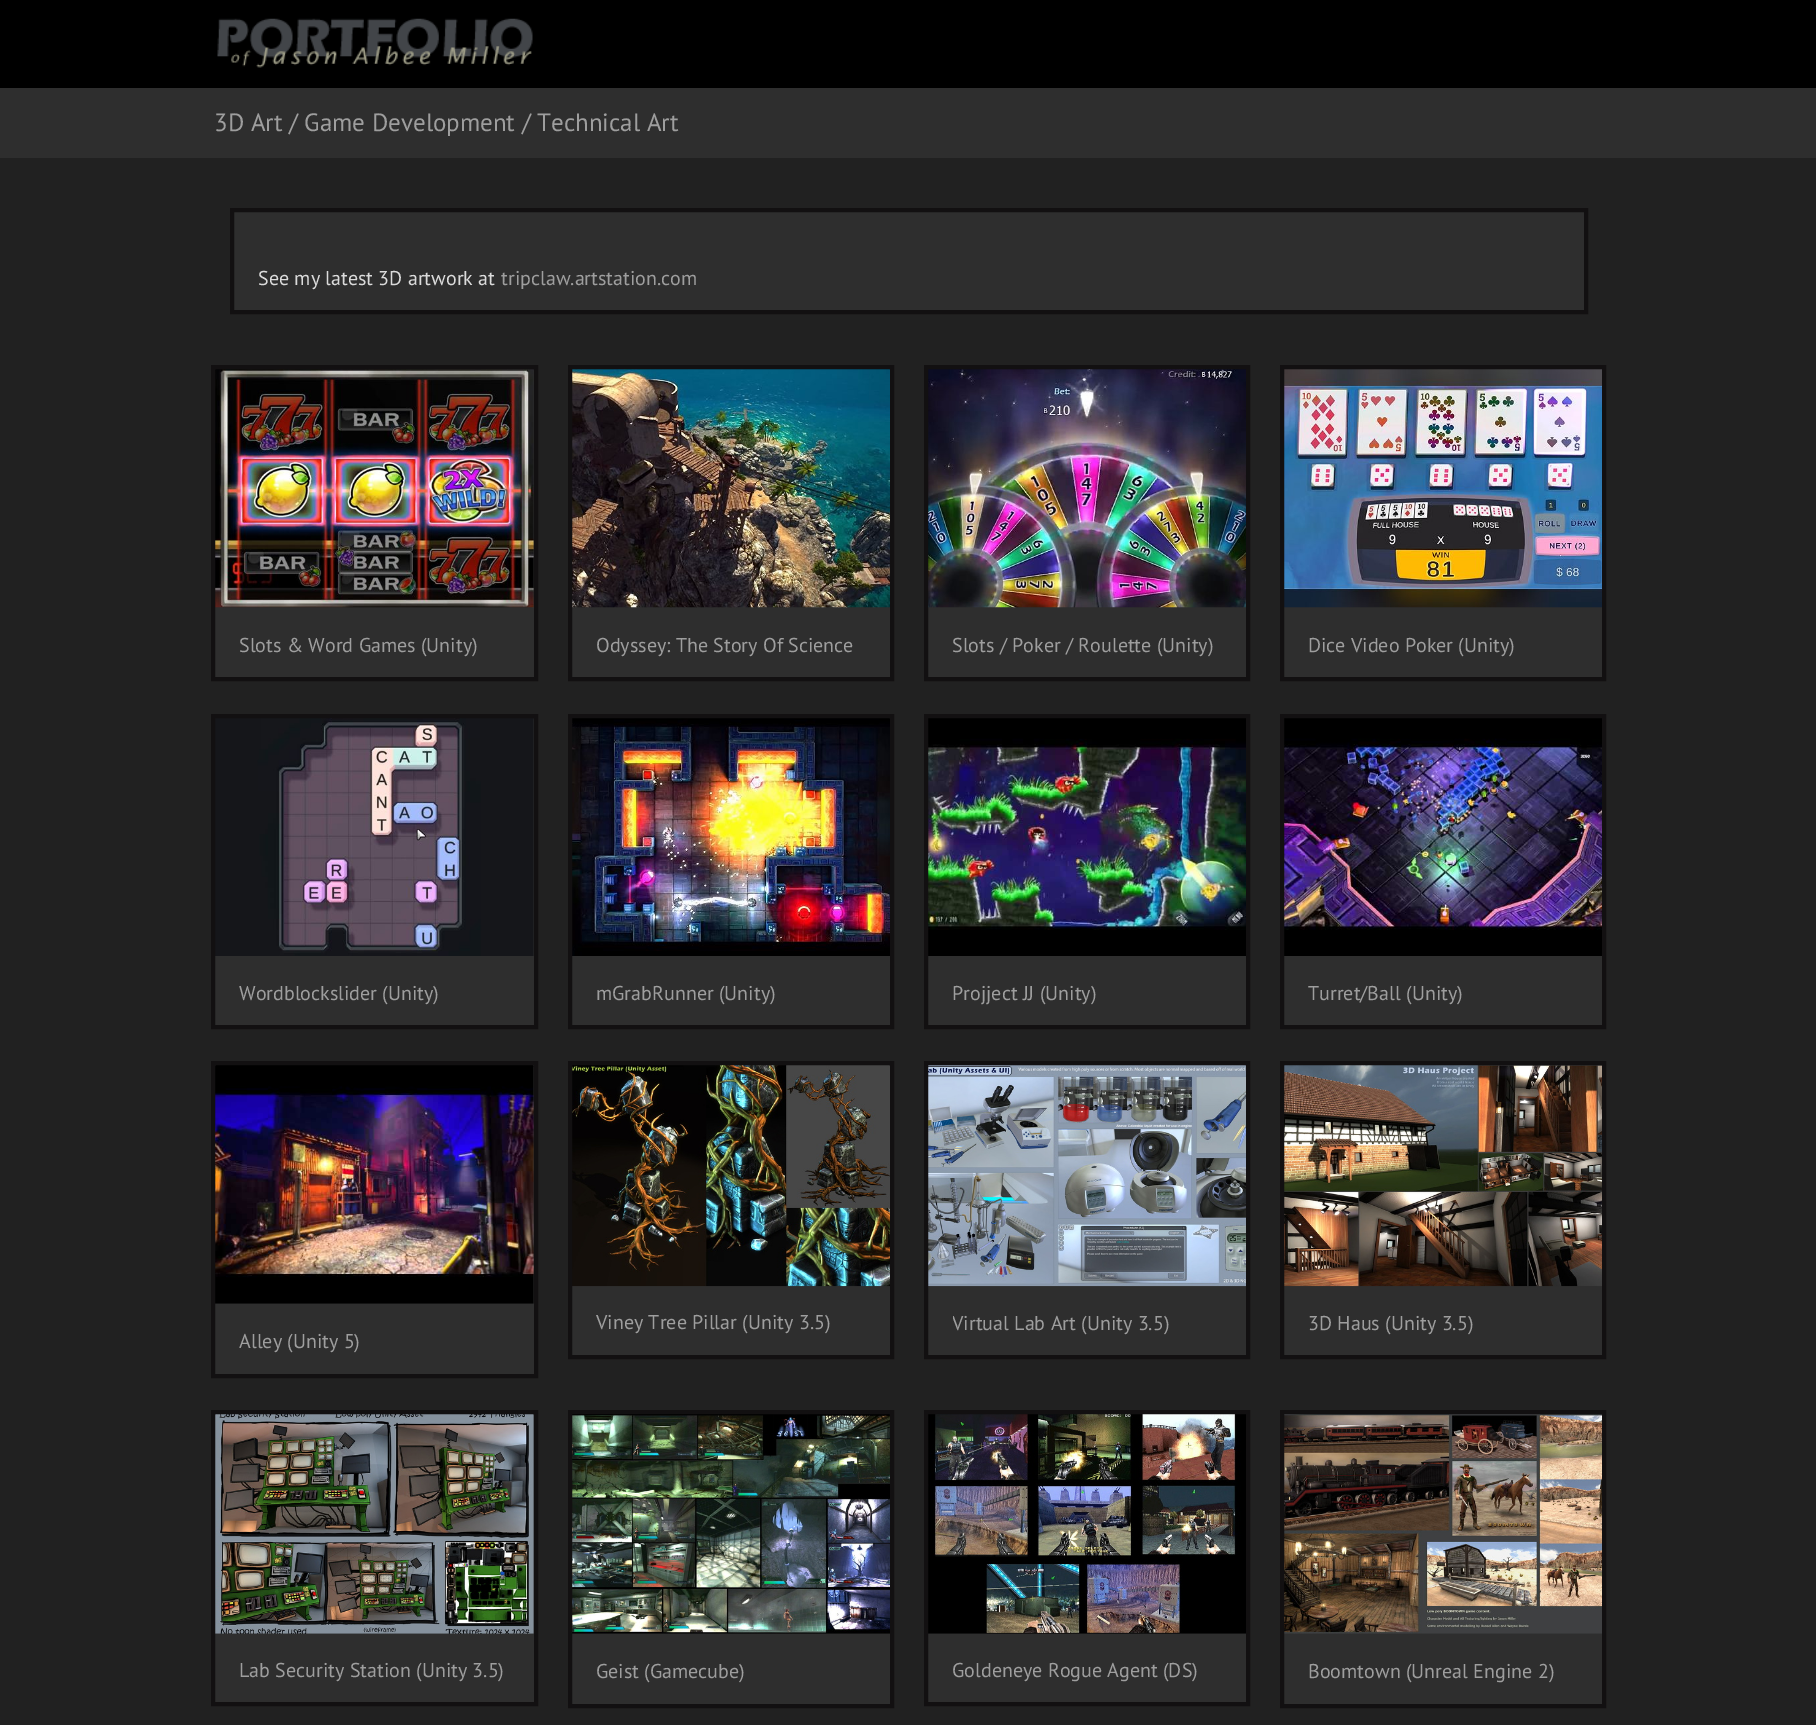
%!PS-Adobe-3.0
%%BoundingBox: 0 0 1816 1725
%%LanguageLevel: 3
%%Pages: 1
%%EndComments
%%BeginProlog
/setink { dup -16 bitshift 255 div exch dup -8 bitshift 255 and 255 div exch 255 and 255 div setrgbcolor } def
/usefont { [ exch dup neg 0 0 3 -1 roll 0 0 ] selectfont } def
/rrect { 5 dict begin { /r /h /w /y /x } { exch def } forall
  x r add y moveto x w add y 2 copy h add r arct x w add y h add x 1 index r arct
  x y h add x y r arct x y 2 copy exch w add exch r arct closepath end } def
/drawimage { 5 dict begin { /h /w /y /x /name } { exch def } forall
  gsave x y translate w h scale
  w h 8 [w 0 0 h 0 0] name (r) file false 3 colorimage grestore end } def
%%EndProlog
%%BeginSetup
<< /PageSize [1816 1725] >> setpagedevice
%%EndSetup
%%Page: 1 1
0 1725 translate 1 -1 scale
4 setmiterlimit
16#212121 setink
0 0 1816 1725 rectfill
16#000000 setink
0 0 1816 88 rectfill
(img1.raw) 217 18 316 50 drawimage
16#2E2E2E setink
0 88 1816 70 rectfill
/PTSans-Regular 25 usefont
16#9E9E9E setink
214 131 moveto (3D Art / Game Development / Technical Art) show
16#2E2E2E setink
234 211 1350 99 2.5 rrect fill
234 308 1350 2 rectfill
16#121011 setink
4 setlinewidth
232 210 1354 102 rectstroke
/PTSans-Regular 20 usefont
16#DBDBDB setink
258 285 moveto (See my latest 3D artwork at) show
16#9E9E9E setink
501 285 moveto (tripclaw.artstation.com) show
16#2E2E2E setink
215 369 319 309 2.5 rrect fill
(img2.raw) 215 369 319 239 drawimage
215 676 319 1 rectfill
16#121011 setink
213 367 323 312 rectstroke
16#9E9E9E setink
239 652 moveto (Slots & Word Games \(Unity\)) show
16#2E2E2E setink
571 369 319 309 2.5 rrect fill
(img3.raw) 572 369 318 239 drawimage
889 676 1 1 rectfill
16#121011 setink
570 367 322 312 rectstroke
16#9E9E9E setink
596 652 moveto (Odyssey: The Story Of Science) show
16#2E2E2E setink
928 607 318 70 rectfill
(img4.raw) 928 369 318 239 drawimage
16#121011 setink
926 367 322 312 rectstroke
16#9E9E9E setink
952 652 moveto (Slots / Poker / Roulette \(Unity\)) show
16#2E2E2E setink
1284 607 318 70 rectfill
(img5.raw) 1284 369 318 239 drawimage
16#121011 setink
1282 367 322 312 rectstroke
16#9E9E9E setink
1308 652 moveto (Dice Video Poker \(Unity\)) show
16#2E2E2E setink
215 718 319 307 2.5 rrect fill
(img6.raw) 215 718 319 238 drawimage
215 1023 319 2 rectfill
16#121011 setink
213 716 323 311 rectstroke
16#9E9E9E setink
239 1000 moveto (Wordblockslider \(Unity\)) show
(img7.raw) 572 718 318 238 drawimage
16#2E2E2E setink
572 956 318 69 rectfill
16#121011 setink
570 716 322 311 rectstroke
16#9E9E9E setink
596 1000 moveto (mGrabRunner \(Unity\)) show
(img8.raw) 928 718 318 238 drawimage
16#2E2E2E setink
928 956 318 69 rectfill
16#121011 setink
926 716 322 311 rectstroke
16#9E9E9E setink
952 1000 moveto (Projject JJ \(Unity\)) show
(img9.raw) 1284 718 318 238 drawimage
16#2E2E2E setink
1284 956 318 69 rectfill
16#121011 setink
1282 716 322 311 rectstroke
16#9E9E9E setink
1308 1000 moveto (Turret/Ball \(Unity\)) show
16#2E2E2E setink
572 1286 318 69 rectfill
(img10.raw) 572 1065 318 222 drawimage
16#121011 setink
570 1063 322 294 rectstroke
16#9E9E9E setink
596 1329 moveto (Viney Tree Pillar \(Unity 3.5\)) show
16#2E2E2E setink
928 1286 318 69 rectfill
(img11.raw) 928 1065 318 222 drawimage
16#121011 setink
926 1063 322 294 rectstroke
gsave
953 1311 268 24 rectclip
16#9E9E9E setink
952 1330 moveto (Virtual Lab Art \(Unity 3.5\)) show
grestore
16#2E2E2E setink
1284 1286 318 69 rectfill
(img12.raw) 1284 1065 318 222 drawimage
16#121011 setink
1282 1063 322 294 rectstroke
16#9E9E9E setink
1308 1330 moveto (3D Haus \(Unity 3.5\)) show
16#2E2E2E setink
215 1065 319 309 2.5 rrect fill
(img13.raw) 215 1065 319 239 drawimage
215 1372 319 2 rectfill
16#121011 setink
213 1063 323 313 rectstroke
16#9E9E9E setink
239 1348 moveto (Alley \(Unity 5\)) show
16#2E2E2E setink
215 1414 319 289 2.5 rrect fill
(img14.raw) 215 1414 319 220 drawimage
215 1701 319 1 rectfill
16#121011 setink
213 1412 323 292 rectstroke
16#9E9E9E setink
239 1677 moveto (Lab Security Station \(Unity 3.5\)) show
16#2E2E2E setink
571 1414 319 290 2.5 rrect fill
(img15.raw) 572 1414 318 220 drawimage
572 1702 318 2 rectfill
16#121011 setink
570 1412 322 294 rectstroke
16#9E9E9E setink
596 1678 moveto (Geist \(Gamecube\)) show
16#2E2E2E setink
928 1633 318 69 rectfill
(img16.raw) 928 1414 318 220 drawimage
16#121011 setink
926 1412 322 292 rectstroke
16#9E9E9E setink
952 1677 moveto (Goldeneye Rogue Agent \(DS\)) show
16#2E2E2E setink
1284 1633 318 71 rectfill
(img17.raw) 1284 1414 318 220 drawimage
16#121011 setink
1282 1412 322 294 rectstroke
16#9E9E9E setink
1308 1678 moveto (Boomtown \(Unreal Engine 2\)) show
showpage
%%EOF
